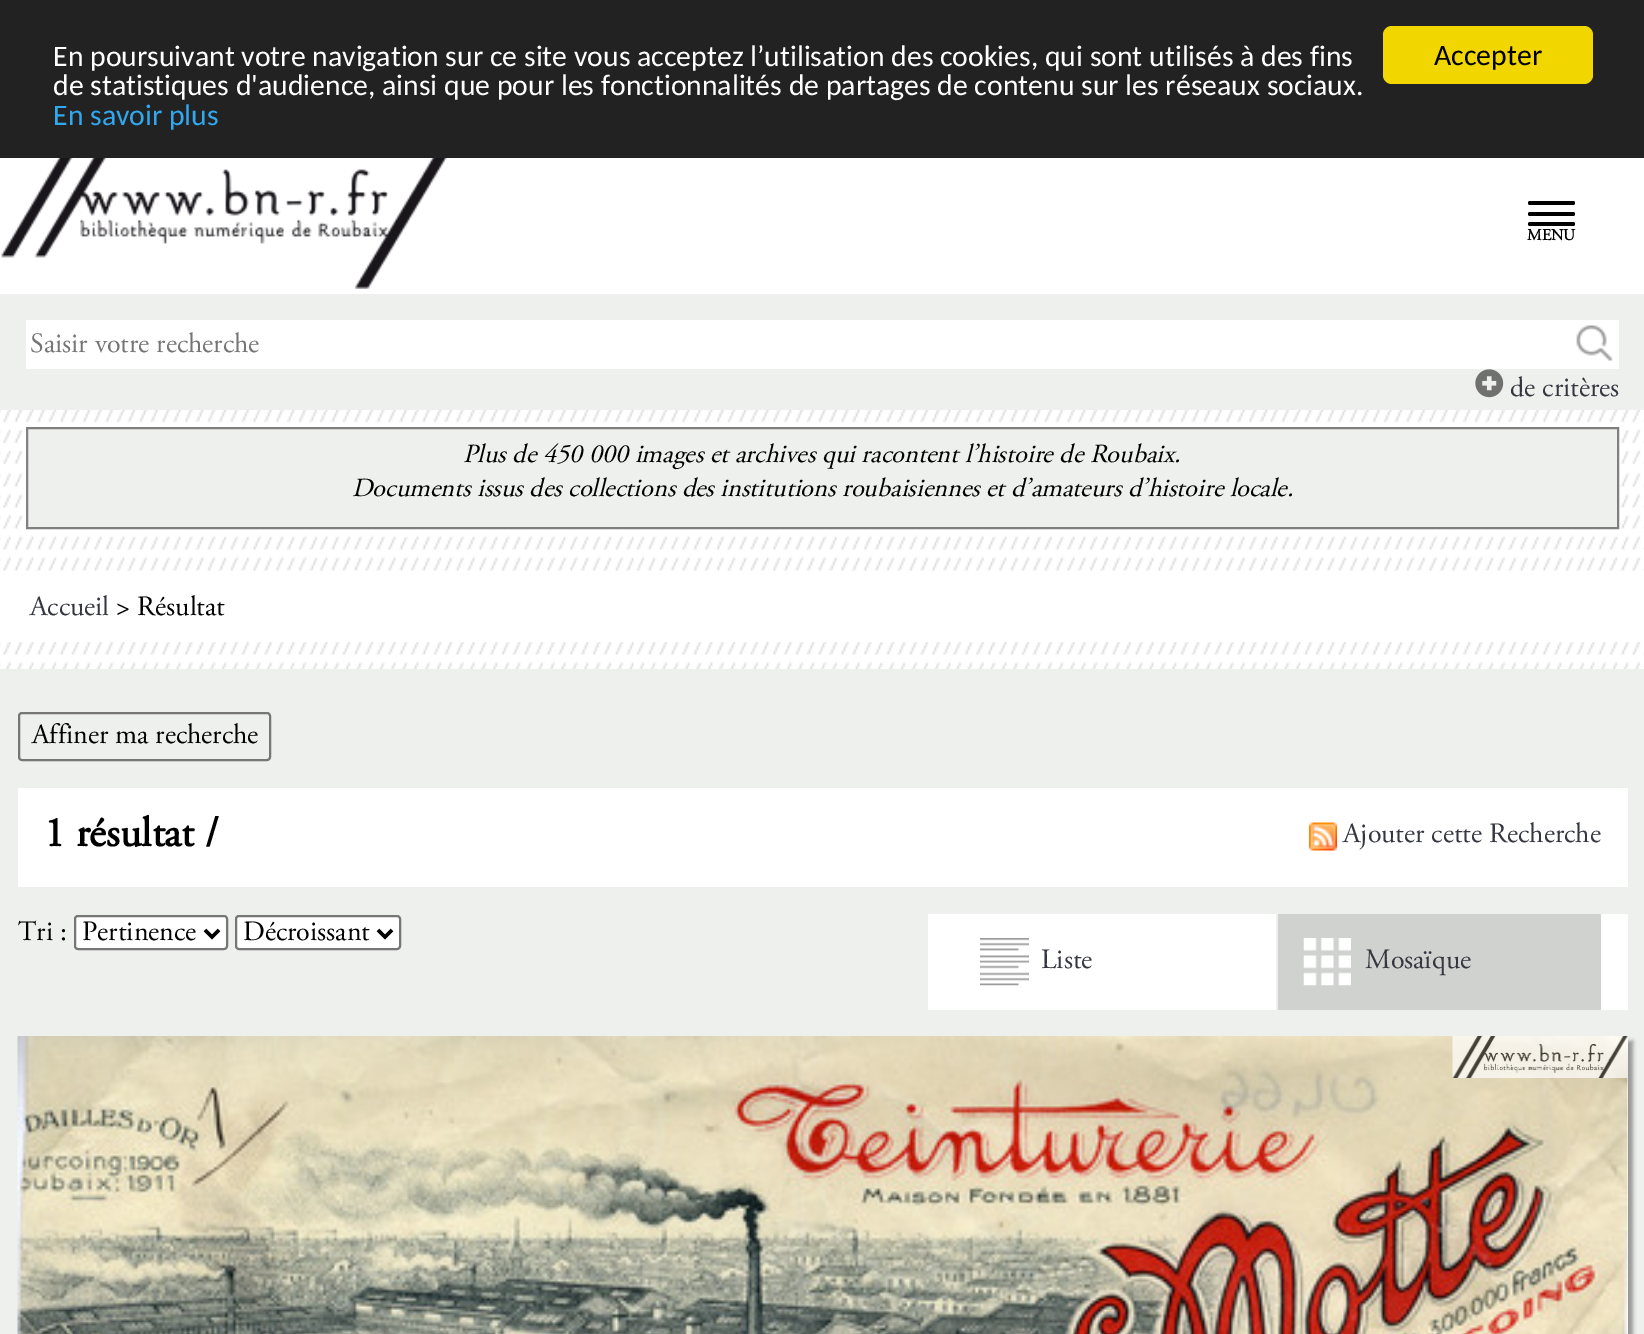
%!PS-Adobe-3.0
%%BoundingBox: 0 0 1644 1334
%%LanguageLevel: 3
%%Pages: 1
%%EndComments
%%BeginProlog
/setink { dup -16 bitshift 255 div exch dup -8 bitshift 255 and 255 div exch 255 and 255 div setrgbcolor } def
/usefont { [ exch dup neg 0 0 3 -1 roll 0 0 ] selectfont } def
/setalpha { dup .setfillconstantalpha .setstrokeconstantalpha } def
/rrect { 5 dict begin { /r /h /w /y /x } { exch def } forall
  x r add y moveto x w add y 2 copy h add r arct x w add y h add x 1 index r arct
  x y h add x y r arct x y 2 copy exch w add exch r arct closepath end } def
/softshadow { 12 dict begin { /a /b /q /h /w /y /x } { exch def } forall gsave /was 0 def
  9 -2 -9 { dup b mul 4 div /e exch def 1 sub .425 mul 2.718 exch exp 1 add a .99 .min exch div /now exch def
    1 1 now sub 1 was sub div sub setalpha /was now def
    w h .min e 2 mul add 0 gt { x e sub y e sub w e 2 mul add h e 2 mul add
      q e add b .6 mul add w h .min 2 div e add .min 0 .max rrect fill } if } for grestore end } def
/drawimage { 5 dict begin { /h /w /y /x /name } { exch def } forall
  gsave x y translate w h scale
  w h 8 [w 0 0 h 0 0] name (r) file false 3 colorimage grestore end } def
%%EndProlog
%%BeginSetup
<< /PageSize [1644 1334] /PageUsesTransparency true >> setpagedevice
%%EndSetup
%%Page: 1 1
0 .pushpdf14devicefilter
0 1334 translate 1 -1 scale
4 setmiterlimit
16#FFFFFF setink
0 0 1644 1334 rectfill
(img1.raw) 0 410 1644 259 drawimage
16#222222 setink
0 0 1644 158 rectfill
/Carlito-Regular 29.75 usefont
16#FFFFFF setink
53 66 moveto (En poursuivant votre navigation sur ce site vous acceptez l’utilisation des cookies, qui sont utilisés à des fins) show
53 95 moveto (de statistiques d'audience, ainsi que pour les fonctionnalités de partages de contenu sur les réseaux sociaux.) show
16#31A8F0 setink
53 125 moveto (En savoir plus) show
16#F1D600 setink
1383 26 210 58 9 rrect fill
16#000000 setink
1434 65 moveto (Accepter) show
(img2.raw) 1 158 446 131 drawimage
1528 201 47 4 2 rrect fill
1528 212 47 4 2 rrect fill
1528 222 47 4 2 rrect fill
/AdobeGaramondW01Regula-Bold 16 usefont
1527 240 moveto (MENU) show
16#EEF0ED setink
0 294 1644 116 rectfill
16#FFFFFF setink
26 320 1593 49 rectfill
/AdobeGaramondW01Regula-Regular 28 usefont
16#757575 setink
30 352 moveto (Saisir votre recherche) show
(img3.raw) 1576 325 37 36 drawimage
(img4.raw) 1475 369 29 29 drawimage
16#353740 setink
1510 396 moveto (de critères) show
16#EEF0ED setink
27 428 moveto 1618 428 lineto 1618 528 lineto 27 528 lineto closepath gsave fill grestore
16#808080 setink
2 setlinewidth
stroke
/AdobeGaramondW01Regula-Italic 26.25 usefont
16#000000 setink
463 462 moveto (Plus de 450 000 images et archives qui racontent l’histoire de Roubaix.) show
352 496 moveto (Documents issus des collections des institutions roubaisiennes et d’amateurs d’histoire locale.) show
16#FFFFFF setink
0 577 1644 65 rectfill
/AdobeGaramondW01Regula-Regular 28 usefont
16#353740 setink
30 615 moveto (Accueil) show
16#000000 setink
116 615 moveto (> Résultat) show
16#EEF0ED setink
0 669 1644 665 rectfill
16#767676 setink
19 713 251 47 3 rrect stroke
16#000000 setink
32 743 moveto (Affiner ma recherche) show
16#FFFFFF setink
18 788 1610 99 rectfill
/AdobeGaramondW01Regula-Bold 42 usefont
16#000000 setink
44 846 moveto (1 résultat /) show
(img5.raw) 1309 822 28 29 drawimage
/AdobeGaramondW01Regula-Regular 28 usefont
16#353740 setink
1343 842 moveto (Ajouter cette Recherche) show
16#000000 setink
18 940 moveto (Tri :) show
16#FFFFFF setink
75 916 152 33 3 rrect gsave fill grestore
16#767676 setink
stroke
16#000000 setink
3.5 setlinewidth
205 930 moveto 212 937 lineto 219 930 lineto stroke
82 940 moveto (Pertinence) show
16#FFFFFF setink
236 916 164 33 3 rrect gsave fill grestore
16#767676 setink
2 setlinewidth
stroke
16#000000 setink
3.5 setlinewidth
378 930 moveto 385 937 lineto 392 930 lineto stroke
243 940 moveto (Décroissant) show
16#FFFFFF setink
928 914 700 96 rectfill
16#EEF0ED setink
1276 914 2 96 rectfill
(img6.raw) 980 938 49 48 drawimage
16#353740 setink
1041 968 moveto (Liste) show
16#D0D2D0 setink
1278 914 323 96 rectfill
(img7.raw) 1303 938 48 48 drawimage
16#353740 setink
1365 968 moveto (Mosaïque) show
16#969696 setink
23 1041 1610 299 0 2 1 softshadow
16#FFFFFF setink
1627 1036 1 298 rectfill
(img8.raw) 17 1036 1611 298 drawimage
(img9.raw) 1452 1036 176 42 drawimage
.poppdf14devicefilter showpage
%%EOF
